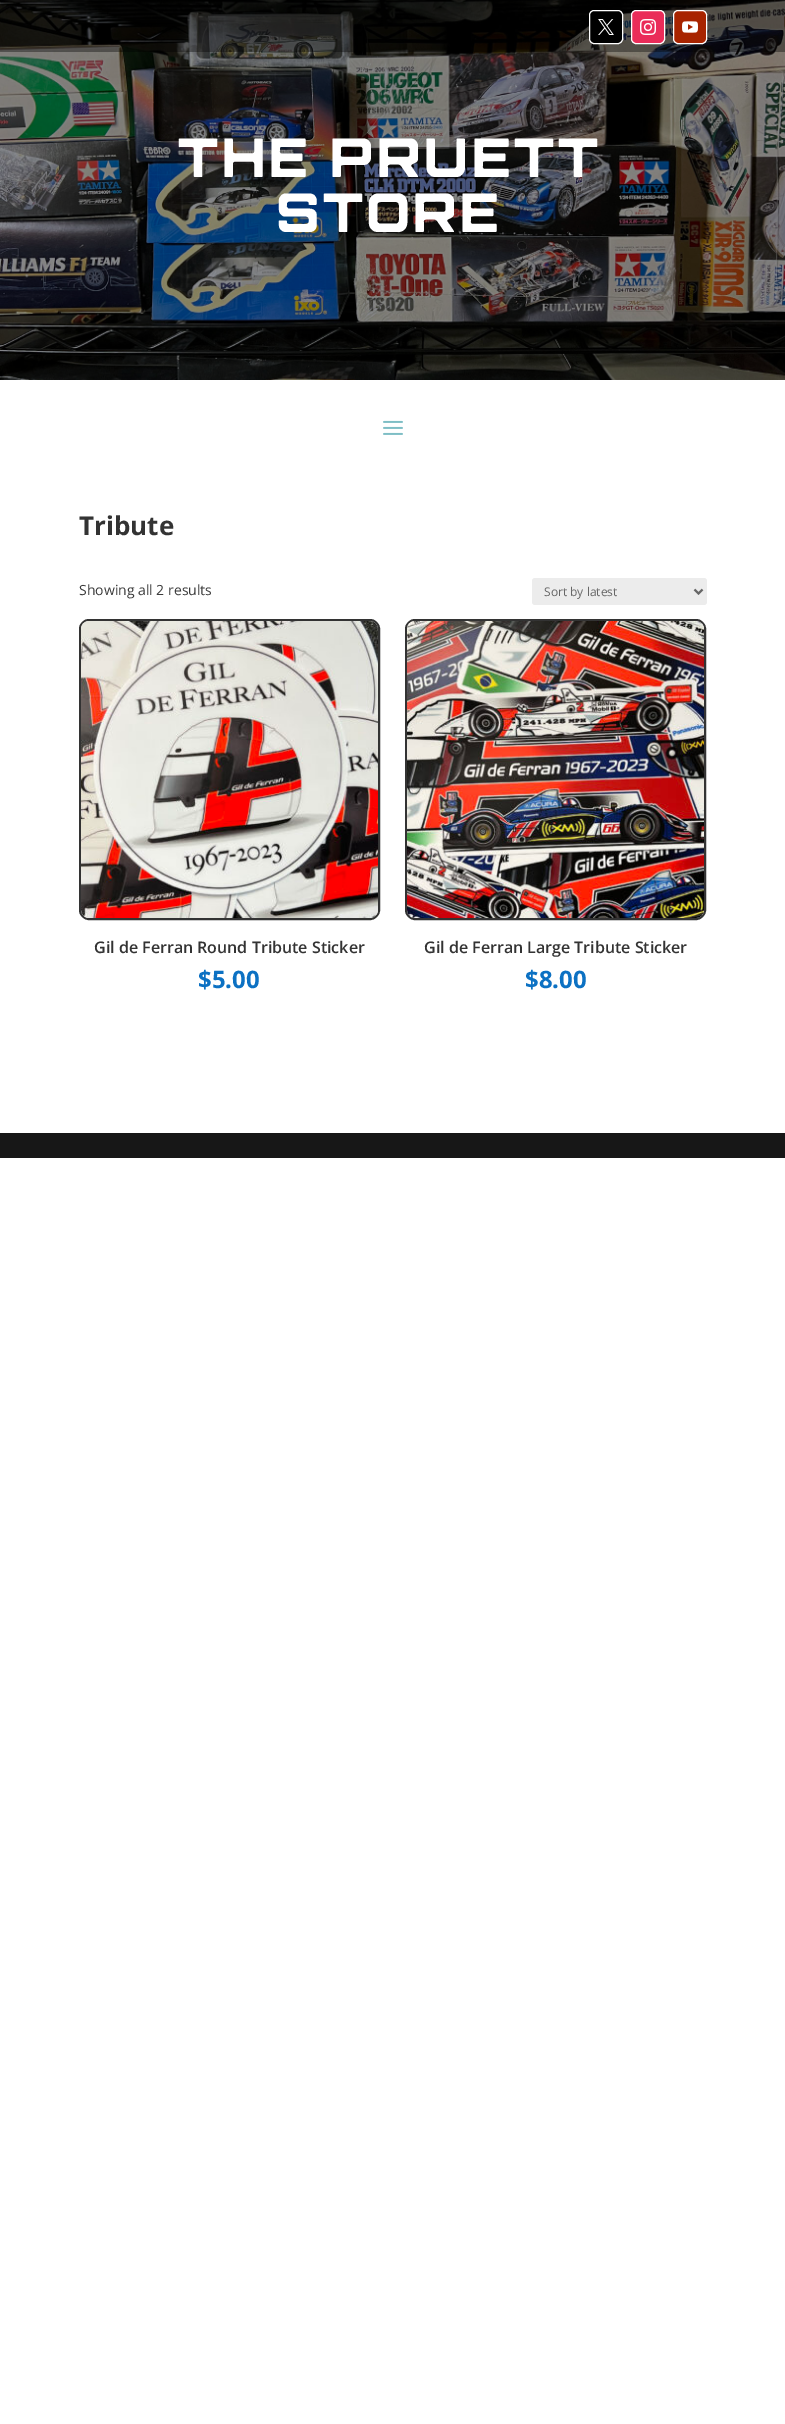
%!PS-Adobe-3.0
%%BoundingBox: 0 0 785 2424
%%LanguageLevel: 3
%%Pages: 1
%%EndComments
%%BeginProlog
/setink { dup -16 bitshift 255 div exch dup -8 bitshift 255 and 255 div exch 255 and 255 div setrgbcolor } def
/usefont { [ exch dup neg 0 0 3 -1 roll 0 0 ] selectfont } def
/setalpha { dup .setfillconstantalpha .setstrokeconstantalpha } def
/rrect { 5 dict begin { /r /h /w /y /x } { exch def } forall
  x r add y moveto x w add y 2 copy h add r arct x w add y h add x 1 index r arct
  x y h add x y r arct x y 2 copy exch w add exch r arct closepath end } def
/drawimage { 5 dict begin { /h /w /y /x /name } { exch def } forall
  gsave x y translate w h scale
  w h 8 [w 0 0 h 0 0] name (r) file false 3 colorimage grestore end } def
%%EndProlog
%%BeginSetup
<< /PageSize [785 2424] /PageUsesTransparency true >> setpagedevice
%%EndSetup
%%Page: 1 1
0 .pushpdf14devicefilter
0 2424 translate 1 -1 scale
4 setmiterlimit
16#FFFFFF setink
0 0 785 2424 rectfill
(img4.raw) 0 0 785 380 drawimage
0.37 setalpha
16#000000 setink
0 0 785 52 rectfill
1 setalpha
589.5 10.5 33 33 4.5 rrect gsave fill grestore
16#FFFFFF setink
stroke
(img1.raw) 598 19 16 16 drawimage
16#EA2C59 setink
631.5 10.5 33 33 4.5 rrect gsave fill grestore
16#FFFFFF setink
stroke
(img2.raw) 640 19 16 16 drawimage
16#A82400 setink
673.5 10.5 33 33 4.5 rrect gsave fill grestore
16#FFFFFF setink
stroke
(img3.raw) 682 21 16 12 drawimage
/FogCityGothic-Bold 55 usefont
176 177 moveto (THE PRUETT) show
275 232 moveto (STORE) show
(img5.raw) 383 420 20 15 drawimage
/OpenSans-Bold 26 usefont
16#333333 setink
79 535 moveto (Tribute) show
/OpenSans-Regular 14 usefont
16#3B3B3B setink
79 595 moveto (Showing all 2 results) show
16#ECECEC setink
532 578 175 27 3 rrect fill
16#666666 setink
2 setlinewidth
694.5 589.5 moveto 698.5 593.5 lineto 702.5 589.5 lineto stroke
/OpenSans-Regular 12 usefont
544 596 moveto (Sort by latest) show
16#333333 setink
80 620 299 299 9 rrect stroke
(img6.raw) 81 621 297 297 drawimage
/OpenSans-SemiBold 16 usefont
94 953 moveto (Gil de Ferran Round Tribute Sticker) show
/OpenSans-Bold 24 usefont
16#0C71C3 setink
198 988 moveto ($5.00) show
16#333333 setink
406 620 299 299 9 rrect stroke
(img7.raw) 407 621 297 297 drawimage
/OpenSans-SemiBold 16 usefont
424 953 moveto (Gil de Ferran Large Tribute Sticker) show
/OpenSans-Bold 24 usefont
16#0C71C3 setink
525 988 moveto ($8.00) show
16#171717 setink
0 1133 785 25 rectfill
.poppdf14devicefilter showpage
%%EOF
